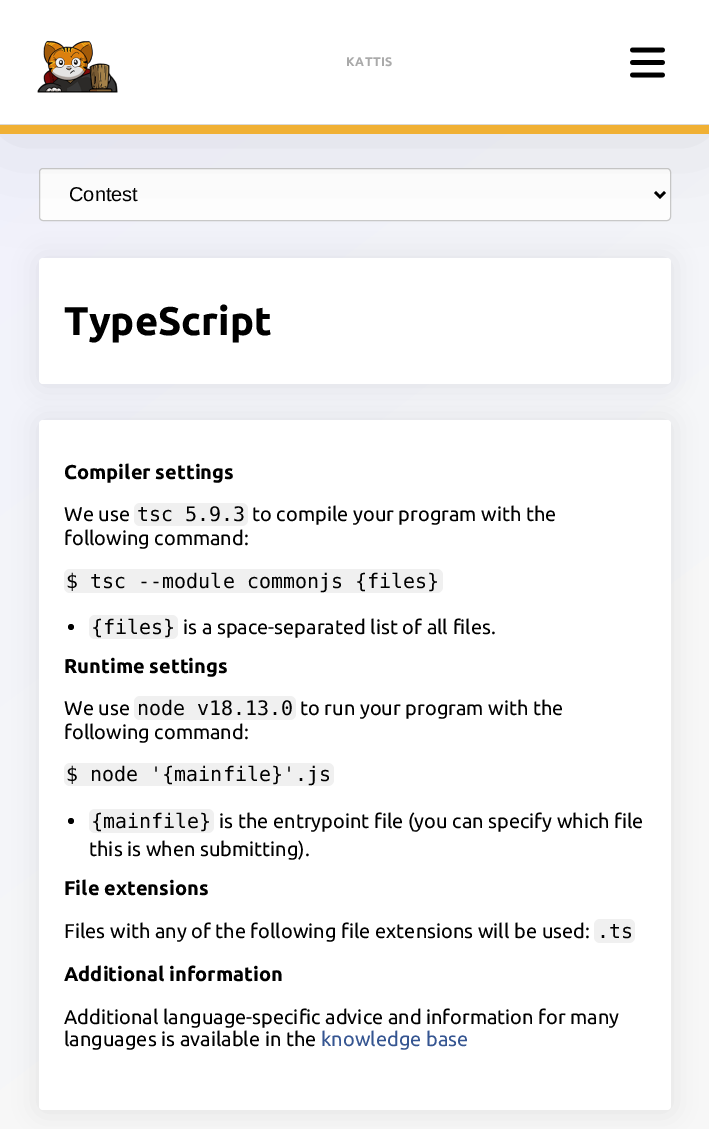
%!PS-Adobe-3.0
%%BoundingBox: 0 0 709 1129
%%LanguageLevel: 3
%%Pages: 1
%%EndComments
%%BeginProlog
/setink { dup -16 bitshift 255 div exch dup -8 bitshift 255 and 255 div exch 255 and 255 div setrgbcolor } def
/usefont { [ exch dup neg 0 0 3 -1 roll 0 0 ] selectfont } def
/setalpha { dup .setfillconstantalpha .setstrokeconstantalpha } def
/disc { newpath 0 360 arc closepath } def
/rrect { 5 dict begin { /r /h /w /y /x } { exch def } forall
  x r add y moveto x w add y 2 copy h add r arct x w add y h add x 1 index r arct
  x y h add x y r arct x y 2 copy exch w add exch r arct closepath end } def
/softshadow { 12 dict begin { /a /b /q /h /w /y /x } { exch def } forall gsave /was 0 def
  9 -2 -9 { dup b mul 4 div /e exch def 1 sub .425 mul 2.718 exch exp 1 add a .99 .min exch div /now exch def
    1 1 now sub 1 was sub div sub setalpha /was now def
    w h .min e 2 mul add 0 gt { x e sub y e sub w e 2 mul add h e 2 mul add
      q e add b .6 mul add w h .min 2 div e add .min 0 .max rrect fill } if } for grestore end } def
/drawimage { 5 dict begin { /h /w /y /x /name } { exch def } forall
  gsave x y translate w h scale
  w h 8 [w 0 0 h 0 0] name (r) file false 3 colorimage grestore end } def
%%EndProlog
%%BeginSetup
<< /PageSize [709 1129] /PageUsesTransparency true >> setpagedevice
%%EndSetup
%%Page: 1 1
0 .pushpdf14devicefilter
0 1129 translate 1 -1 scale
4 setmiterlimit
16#FFFFFF setink
0 0 709 1129 rectfill
gsave 0 134 moveto 709 134 lineto 709 1129 lineto 0 1129 lineto closepath clip newpath
<< /ShadingType 2 /ColorSpace /DeviceRGB /Coords [-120 -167 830 1093] /Extend [true true] /Function << /FunctionType 3 /Domain [0 1] /Functions [<< /FunctionType 2 /Domain [0 1] /C0 [0.945 0.949 0.988] /C1 [0.945 0.949 0.988] /N 1 >> << /FunctionType 2 /Domain [0 1] /C0 [0.945 0.949 0.988] /C1 [0.969 0.969 0.969] /N 1 >> << /FunctionType 2 /Domain [0 1] /C0 [0.969 0.969 0.969] /C1 [0.969 0.969 0.969] /N 1 >>] /Bounds [0.22 0.75] /Encode [0 1 0 1 0 1] >> >> shfill grestore
16#000000 setink
39 259 632 126 4 12.5 0.08 softshadow
16#FFFFFF setink
39.5 168.5 631 52 3.5 rrect gsave fill grestore
16#CACACA setink
stroke
16#000000 setink
2.5 setlinewidth
655 192 moveto 660 197 lineto 665 192 lineto stroke
16#FFFFFF setink
39 258 632 126 4 rrect fill
16#000000 setink
0 3 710 133 0 50 0.09 softshadow
16#FFFFFF setink
0 0 709 124 rectfill
16#D9D9D9 setink
0 124 709 1 rectfill
(img1.raw) 37 40 81 53 drawimage
/Ubuntu-Bold 12.5 usefont
16#AAAAAA setink
346 66 moveto 0.5 0 (KATTIS) ashow
(img2.raw) 630 47 35 31 drawimage
16#F0B034 setink
0 125 709 9 rectfill
/LiberationSans-Regular 20 usefont
16#000000 setink
69 201 moveto (Contest) show
/Ubuntu-Bold 40 usefont
64 335 moveto (TypeScript) show
39 421 632 690 4 12.5 0.08 softshadow
16#FFFFFF setink
39 420 632 690 4 rrect fill
/Ubuntu-Bold 20 usefont
16#000000 setink
64 479 moveto (Compiler settings) show
/Ubuntu-Regular 20 usefont
64 521 moveto (We use) show
16#F0F0F0 setink
134 503 114 23 6 rrect fill
/DejaVuSansMono-Regular 20 usefont
16#000000 setink
137 521 moveto (tsc 5.9.3) show
/Ubuntu-Regular 20 usefont
252 521 moveto (to compile your program with the) show
64 545 moveto (following command:) show
16#F0F0F0 setink
64 569 379 24 6 rrect fill
/DejaVuSansMono-Regular 20 usefont
16#000000 setink
66 588 moveto ($ tsc --module commonjs {files}) show
71 627 3 disc fill
16#F0F0F0 setink
89 615 89 24 6 rrect fill
16#000000 setink
91 634 moveto ({files}) show
/Ubuntu-Regular 20 usefont
183 634 moveto (is a space-separated list of all files.) show
/Ubuntu-Bold 20 usefont
64 673 moveto (Runtime settings) show
/Ubuntu-Regular 20 usefont
64 715 moveto (We use) show
16#F0F0F0 setink
134 696 162 24 6 rrect fill
/DejaVuSansMono-Regular 20 usefont
16#000000 setink
137 715 moveto (node v18.13.0) show
/Ubuntu-Regular 20 usefont
300 715 moveto (to run your program with the) show
64 739 moveto (following command:) show
16#F0F0F0 setink
64 763 270 23 6 rrect fill
/DejaVuSansMono-Regular 20 usefont
16#000000 setink
66 781 moveto ($ node '{mainfile}'.js) show
71 821 3 disc fill
16#F0F0F0 setink
89 809 125 24 6 rrect fill
16#000000 setink
91 828 moveto ({mainfile}) show
/Ubuntu-Regular 20 usefont
219 828 moveto (is the entrypoint file \(you can specify which file) show
89 856 moveto (this is when submitting\).) show
/Ubuntu-Bold 20 usefont
64 895 moveto (File extensions) show
/Ubuntu-Regular 20 usefont
64 938 moveto (Files with any of the following file extensions will be used:) show
16#F0F0F0 setink
594 919 41 24 6 rrect fill
/DejaVuSansMono-Regular 20 usefont
16#000000 setink
597 938 moveto (.ts) show
/Ubuntu-Bold 20 usefont
64 981 moveto (Additional information) show
/Ubuntu-Regular 20 usefont
64 1024 moveto (Additional language-specific advice and information for many) show
64 1046 moveto (languages is available in the) show
16#355591 setink
321 1046 moveto (knowledge base) show
.poppdf14devicefilter showpage
%%EOF
